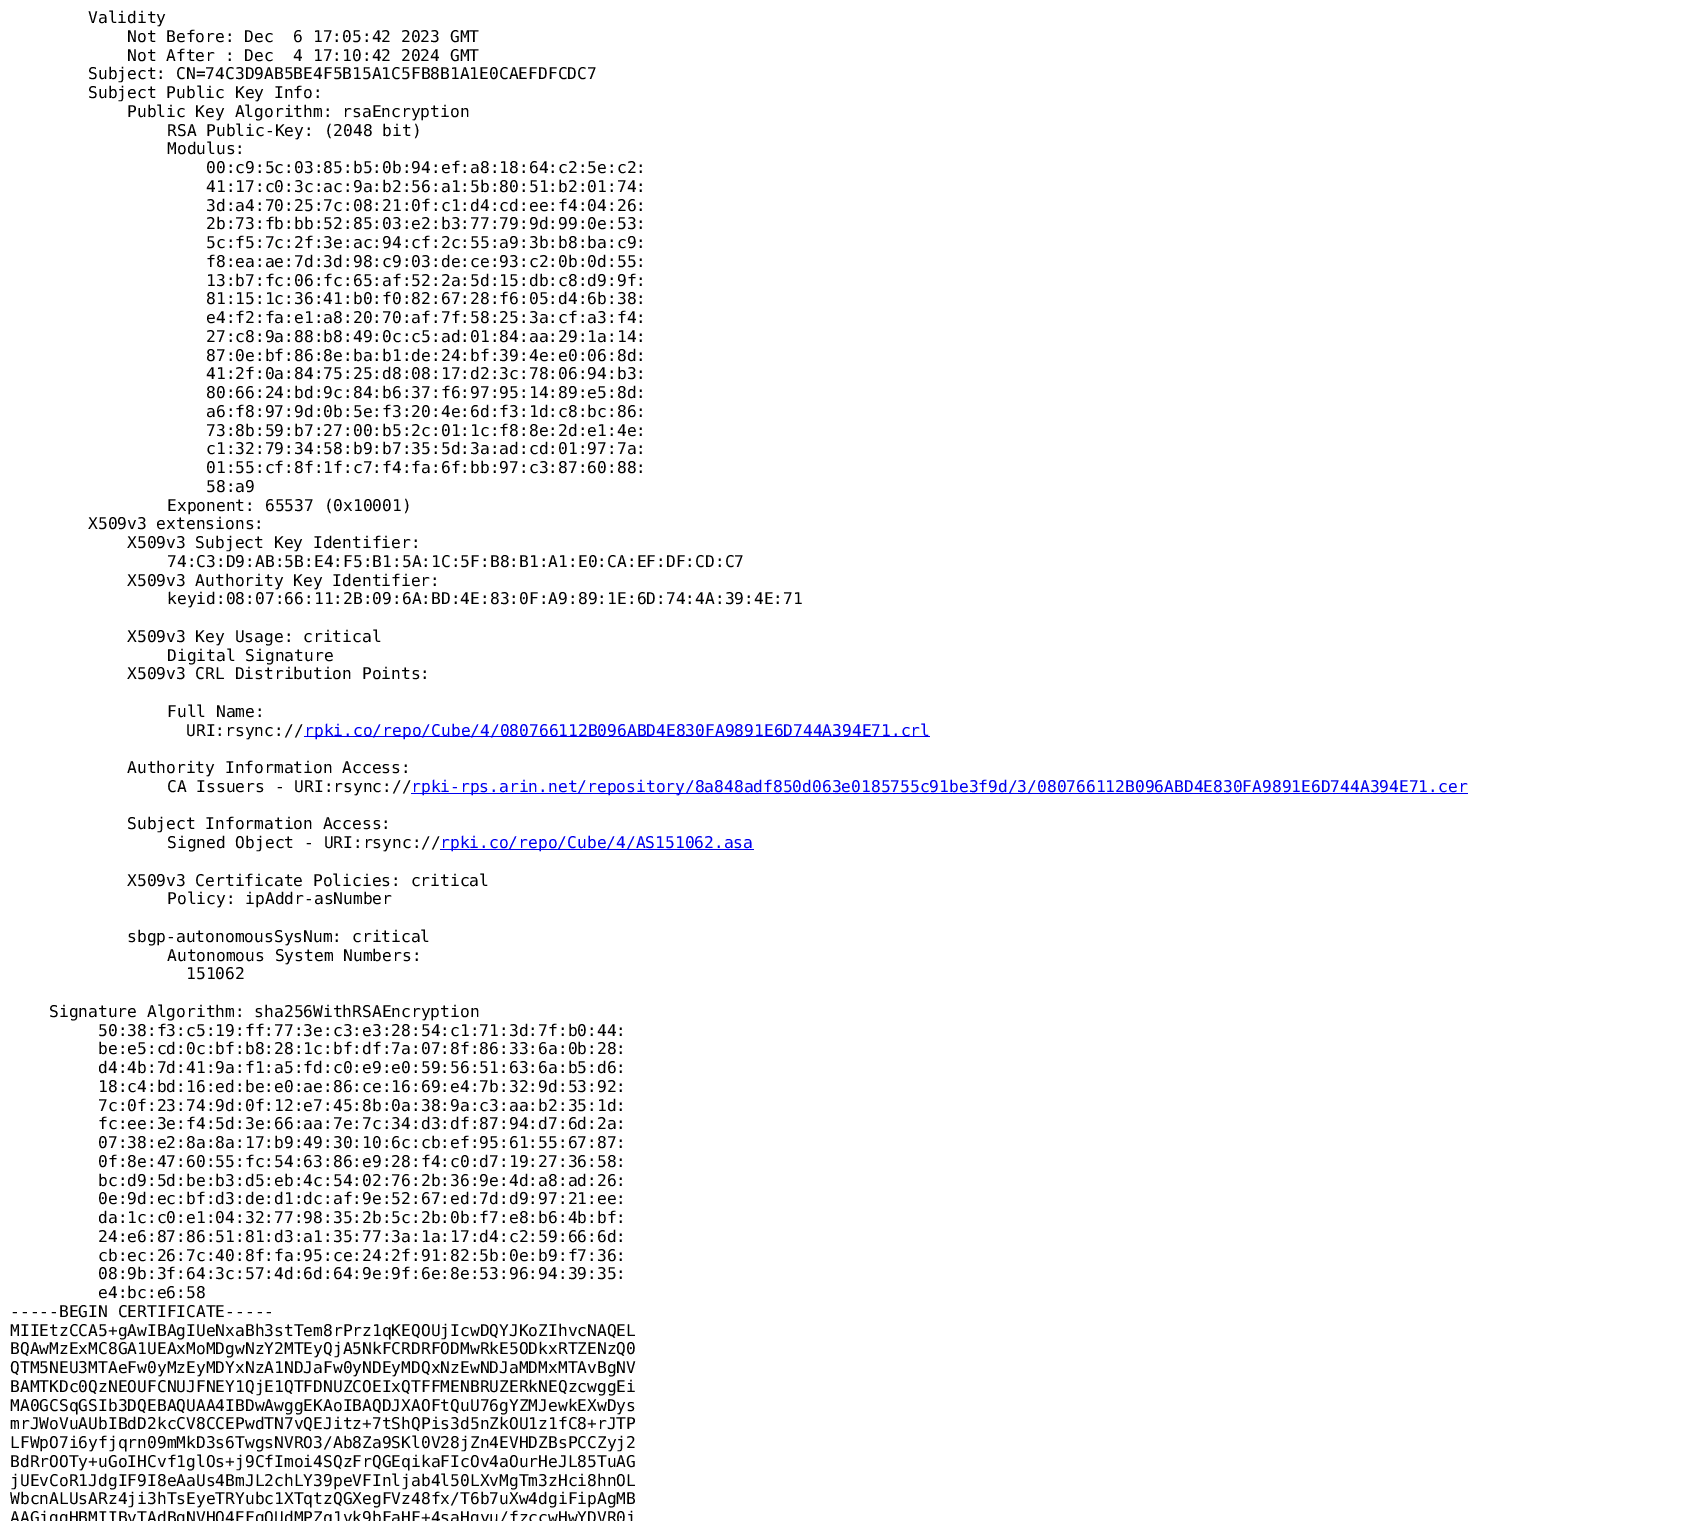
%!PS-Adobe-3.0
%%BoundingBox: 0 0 1690 1521
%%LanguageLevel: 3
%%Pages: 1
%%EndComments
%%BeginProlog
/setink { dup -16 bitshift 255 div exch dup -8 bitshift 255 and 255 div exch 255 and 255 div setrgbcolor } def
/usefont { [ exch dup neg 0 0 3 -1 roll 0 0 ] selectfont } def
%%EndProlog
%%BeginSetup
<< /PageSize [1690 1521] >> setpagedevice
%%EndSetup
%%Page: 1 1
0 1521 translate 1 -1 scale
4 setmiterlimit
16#FFFFFF setink
0 0 1690 1521 rectfill
/DejaVuSansMono-Regular 16.25 usefont
16#000000 setink
[
    [(Validity) 88 23]
    [(Not Before: Dec  6 17:05:42 2023 GMT) 127 42]
    [(Not After : Dec  4 17:10:42 2024 GMT) 127 61]
    [(Subject: CN=74C3D9AB5BE4F5B15A1C5FB8B1A1E0CAEFDFCDC7) 88 79]
    [(Subject Public Key Info:) 88 98]
    [(Public Key Algorithm: rsaEncryption) 127 117]
    [(RSA Public-Key: \(2048 bit\)) 167 136]
    [(Modulus:) 167 154]
    [(00:c9:5c:03:85:b5:0b:94:ef:a8:18:64:c2:5e:c2:) 206 173]
    [(41:17:c0:3c:ac:9a:b2:56:a1:5b:80:51:b2:01:74:) 206 192]
    [(3d:a4:70:25:7c:08:21:0f:c1:d4:cd:ee:f4:04:26:) 206 211]
    [(2b:73:fb:bb:52:85:03:e2:b3:77:79:9d:99:0e:53:) 206 229]
    [(5c:f5:7c:2f:3e:ac:94:cf:2c:55:a9:3b:b8:ba:c9:) 206 248]
    [(f8:ea:ae:7d:3d:98:c9:03:de:ce:93:c2:0b:0d:55:) 206 267]
    [(13:b7:fc:06:fc:65:af:52:2a:5d:15:db:c8:d9:9f:) 206 286]
    [(81:15:1c:36:41:b0:f0:82:67:28:f6:05:d4:6b:38:) 206 304]
    [(e4:f2:fa:e1:a8:20:70:af:7f:58:25:3a:cf:a3:f4:) 206 323]
    [(27:c8:9a:88:b8:49:0c:c5:ad:01:84:aa:29:1a:14:) 206 342]
    [(87:0e:bf:86:8e:ba:b1:de:24:bf:39:4e:e0:06:8d:) 206 361]
    [(41:2f:0a:84:75:25:d8:08:17:d2:3c:78:06:94:b3:) 206 379]
    [(80:66:24:bd:9c:84:b6:37:f6:97:95:14:89:e5:8d:) 206 398]
    [(a6:f8:97:9d:0b:5e:f3:20:4e:6d:f3:1d:c8:bc:86:) 206 417]
    [(73:8b:59:b7:27:00:b5:2c:01:1c:f8:8e:2d:e1:4e:) 206 436]
    [(c1:32:79:34:58:b9:b7:35:5d:3a:ad:cd:01:97:7a:) 206 454]
    [(01:55:cf:8f:1f:c7:f4:fa:6f:bb:97:c3:87:60:88:) 206 473]
    [(58:a9) 206 492]
    [(Exponent: 65537 \(0x10001\)) 167 511]
    [(X509v3 extensions:) 88 529]
    [(X509v3 Subject Key Identifier:) 127 548]
    [(74:C3:D9:AB:5B:E4:F5:B1:5A:1C:5F:B8:B1:A1:E0:CA:EF:DF:CD:C7) 167 567]
    [(X509v3 Authority Key Identifier:) 127 586]
    [(keyid:08:07:66:11:2B:09:6A:BD:4E:83:0F:A9:89:1E:6D:74:4A:39:4E:71) 167 604]
    [(X509v3 Key Usage: critical) 127 642]
    [(Digital Signature) 167 661]
    [(X509v3 CRL Distribution Points:) 127 679]
    [(Full Name:) 167 717]
    [(URI:rsync://) 186 736]
] { aload pop moveto show } forall
16#0000EE setink
304 736 626 1 rectfill
304 736 moveto (rpki.co/repo/Cube/4/080766112B096ABD4E830FA9891E6D744A394E71.crl) show
16#000000 setink
127 773 moveto (Authority Information Access:) show
167 792 moveto (CA Issuers - URI:rsync://) show
16#0000EE setink
411 793 1057 1 rectfill
411 792 moveto (rpki-rps.arin.net/repository/8a848adf850d063e0185755c91be3f9d/3/080766112B096ABD4E830FA9891E6D744A394E71.cer) show
16#000000 setink
127 829 moveto (Subject Information Access:) show
167 848 moveto (Signed Object - URI:rsync://) show
16#0000EE setink
440 849 314 1 rectfill
440 848 moveto (rpki.co/repo/Cube/4/AS151062.asa) show
16#000000 setink
[
    [(X509v3 Certificate Policies: critical) 127 886]
    [(Policy: ipAddr-asNumber) 167 904]
    [(sbgp-autonomousSysNum: critical) 127 942]
    [(Autonomous System Numbers:) 167 961]
    [(151062) 186 979]
    [(Signature Algorithm: sha256WithRSAEncryption) 49 1017]
    [(50:38:f3:c5:19:ff:77:3e:c3:e3:28:54:c1:71:3d:7f:b0:44:) 98 1036]
    [(be:e5:cd:0c:bf:b8:28:1c:bf:df:7a:07:8f:86:33:6a:0b:28:) 98 1054]
    [(d4:4b:7d:41:9a:f1:a5:fd:c0:e9:e0:59:56:51:63:6a:b5:d6:) 98 1073]
    [(18:c4:bd:16:ed:be:e0:ae:86:ce:16:69:e4:7b:32:9d:53:92:) 98 1092]
    [(7c:0f:23:74:9d:0f:12:e7:45:8b:0a:38:9a:c3:aa:b2:35:1d:) 98 1111]
    [(fc:ee:3e:f4:5d:3e:66:aa:7e:7c:34:d3:df:87:94:d7:6d:2a:) 98 1129]
    [(07:38:e2:8a:8a:17:b9:49:30:10:6c:cb:ef:95:61:55:67:87:) 98 1148]
    [(0f:8e:47:60:55:fc:54:63:86:e9:28:f4:c0:d7:19:27:36:58:) 98 1167]
    [(bc:d9:5d:be:b3:d5:eb:4c:54:02:76:2b:36:9e:4d:a8:ad:26:) 98 1186]
    [(0e:9d:ec:bf:d3:de:d1:dc:af:9e:52:67:ed:7d:d9:97:21:ee:) 98 1204]
    [(da:1c:c0:e1:04:32:77:98:35:2b:5c:2b:0b:f7:e8:b6:4b:bf:) 98 1223]
    [(24:e6:87:86:51:81:d3:a1:35:77:3a:1a:17:d4:c2:59:66:6d:) 98 1242]
    [(cb:ec:26:7c:40:8f:fa:95:ce:24:2f:91:82:5b:0e:b9:f7:36:) 98 1261]
    [(08:9b:3f:64:3c:57:4d:6d:64:9e:9f:6e:8e:53:96:94:39:35:) 98 1279]
    [(e4:bc:e6:58) 98 1298]
    [(-----BEGIN CERTIFICATE-----) 10 1317]
    [(MIIEtzCCA5+gAwIBAgIUeNxaBh3stTem8rPrz1qKEQOUjIcwDQYJKoZIhvcNAQEL) 10 1336]
    [(BQAwMzExMC8GA1UEAxMoMDgwNzY2MTEyQjA5NkFCRDRFODMwRkE5ODkxRTZENzQ0) 10 1354]
    [(QTM5NEU3MTAeFw0yMzEyMDYxNzA1NDJaFw0yNDEyMDQxNzEwNDJaMDMxMTAvBgNV) 10 1373]
    [(BAMTKDc0QzNEOUFCNUJFNEY1QjE1QTFDNUZCOEIxQTFFMENBRUZERkNEQzcwggEi) 10 1392]
    [(MA0GCSqGSIb3DQEBAQUAA4IBDwAwggEKAoIBAQDJXAOFtQuU76gYZMJewkEXwDys) 10 1411]
    [(mrJWoVuAUbIBdD2kcCV8CCEPwdTN7vQEJitz+7tShQPis3d5nZkOU1z1fC8+rJTP) 10 1429]
    [(LFWpO7i6yfjqrn09mMkD3s6TwgsNVRO3/Ab8Za9SKl0V28jZn4EVHDZBsPCCZyj2) 10 1448]
    [(BdRrOOTy+uGoIHCvf1glOs+j9CfImoi4SQzFrQGEqikaFIcOv4aOurHeJL85TuAG) 10 1467]
    [(jUEvCoR1JdgIF9I8eAaUs4BmJL2chLY39peVFInljab4l50LXvMgTm3zHci8hnOL) 10 1486]
    [(WbcnALUsARz4ji3hTsEyeTRYubc1XTqtzQGXegFVz48fx/T6b7uXw4dgiFipAgMB) 10 1504]
    [(AAGjggHBMIIBvTAdBgNVHQ4EFgQUdMPZq1vk9bFaHF+4saHgyu/fzccwHwYDVR0j) 10 1523]
] { aload pop moveto show } forall
showpage
%%EOF
